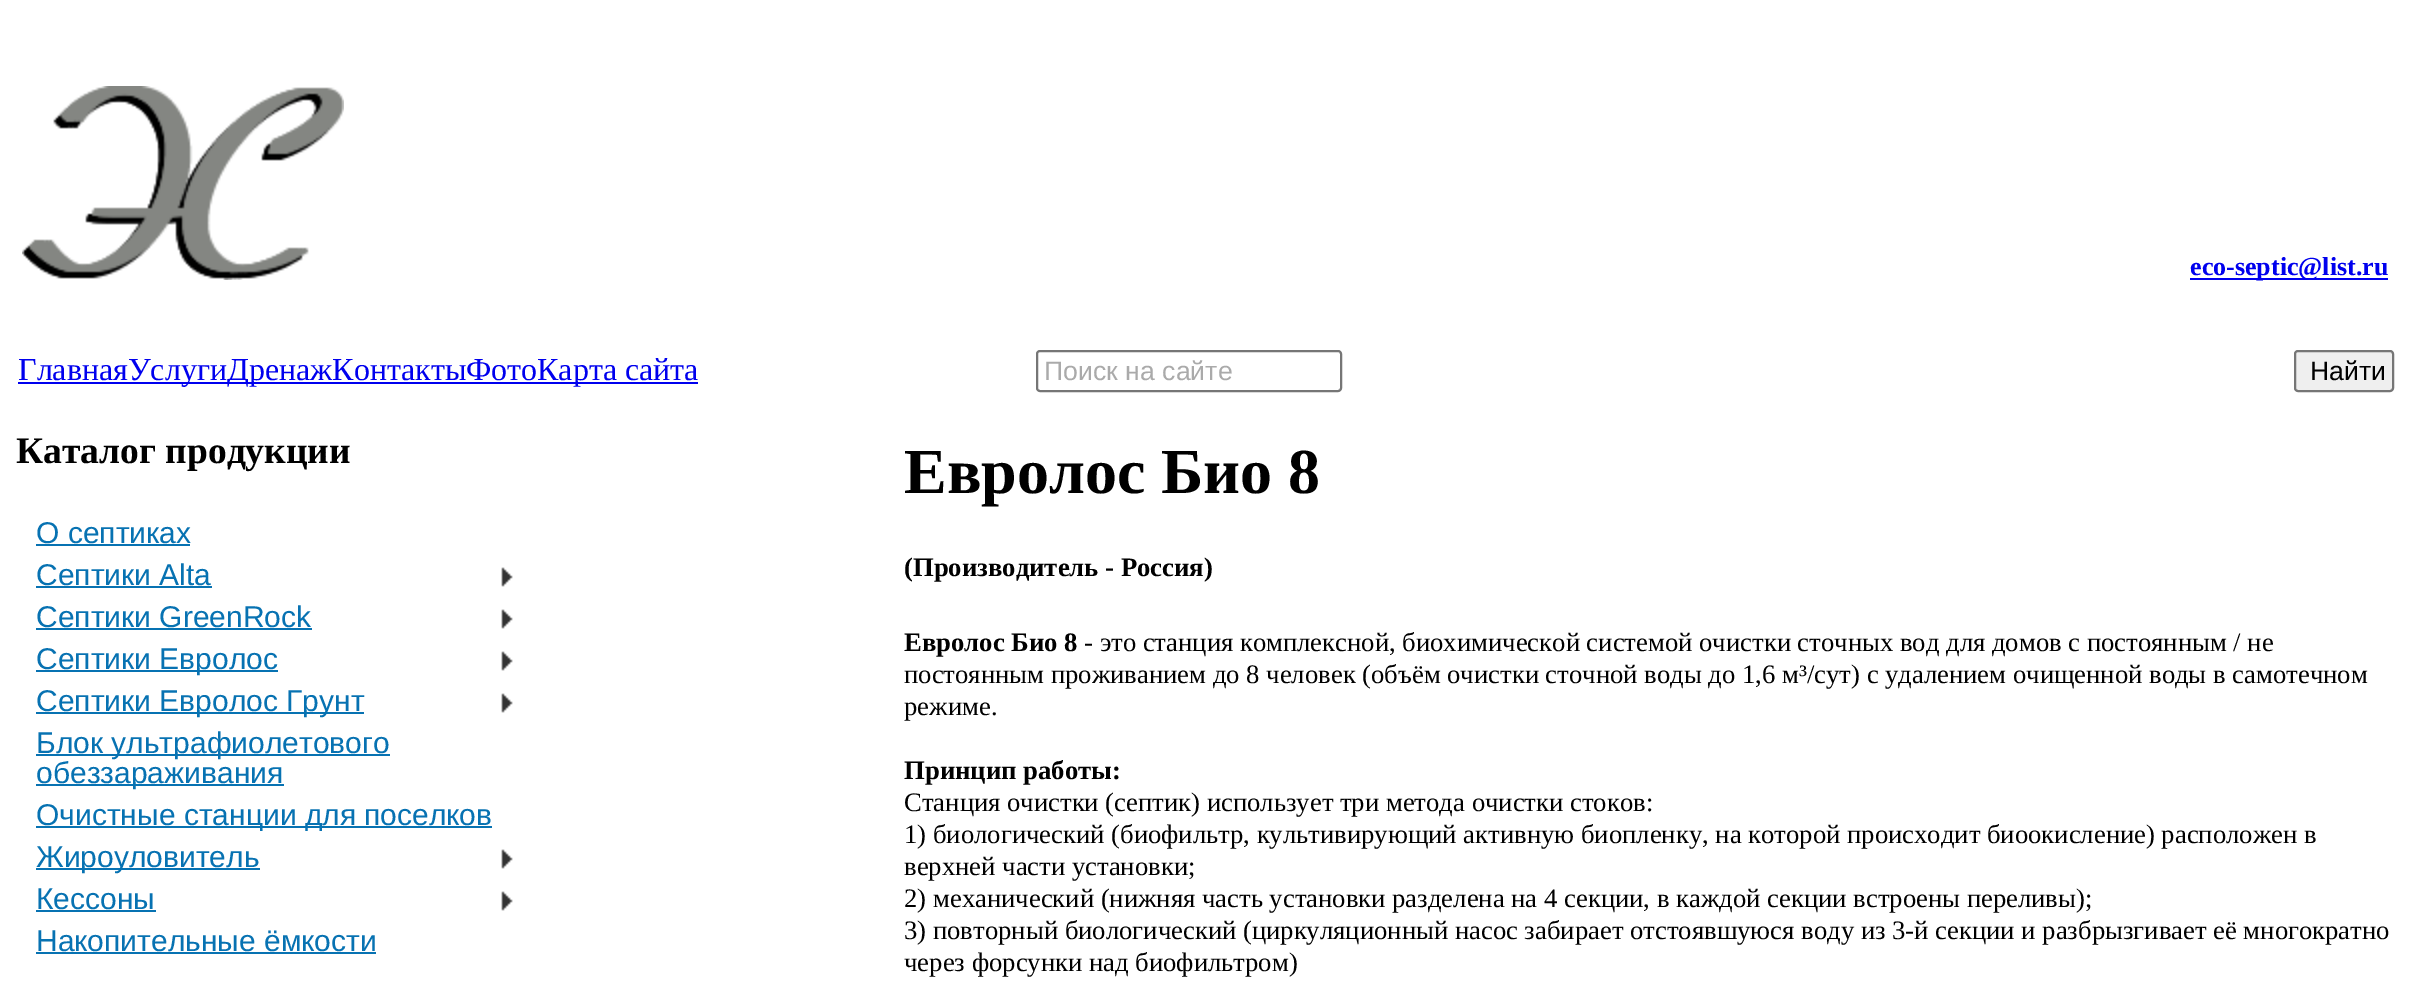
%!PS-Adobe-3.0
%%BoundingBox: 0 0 2410 983
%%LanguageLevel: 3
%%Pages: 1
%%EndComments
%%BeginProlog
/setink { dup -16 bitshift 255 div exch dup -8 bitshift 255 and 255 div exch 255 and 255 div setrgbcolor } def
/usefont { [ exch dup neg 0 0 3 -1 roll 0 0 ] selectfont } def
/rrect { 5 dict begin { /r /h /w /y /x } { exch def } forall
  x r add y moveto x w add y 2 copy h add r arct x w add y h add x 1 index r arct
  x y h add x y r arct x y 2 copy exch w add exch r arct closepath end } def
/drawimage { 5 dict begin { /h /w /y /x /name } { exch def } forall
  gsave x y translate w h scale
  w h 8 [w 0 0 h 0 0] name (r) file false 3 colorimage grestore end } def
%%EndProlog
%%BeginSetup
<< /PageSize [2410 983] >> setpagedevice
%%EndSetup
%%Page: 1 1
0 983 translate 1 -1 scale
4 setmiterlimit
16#FFFFFF setink
0 0 2410 983 rectfill
(img1.raw) 22 86 322 194 drawimage
16#0000EE setink
2190 278 198 2 rectfill
/LiberationSerif-Bold 26 usefont
2190 275 moveto (eco-septic@list.ru) show
18 382 208 2 rectfill
/LiberationSerif-Regular 32 usefont
18 380 moveto (ГлавнаяУслуги) show
226 382 106 2 rectfill
227 380 moveto (ДренажКонтактыФото) show
332 382 366 2 rectfill
537 380 moveto (Карта сайта) show
16#767676 setink
2 setlinewidth
1037 351 304 40 3 rrect stroke
/LiberationSans-Regular 26.67 usefont
16#AAAAAA setink
1044 380 moveto (Поиск на сайте) show
16#EFEFEF setink
2295 351 98 40 3 rrect gsave fill grestore
16#767676 setink
stroke
16#000000 setink
2310 380 moveto (Найти) show
/LiberationSerif-Bold 37.5 usefont
16 463 moveto (Каталог продукции) show
/LiberationSans-Regular 30 usefont
16#0772B2 setink
36 543 moveto (О септиках) show
36 544 154 2 rectfill
36 585 moveto (Септики Alta) show
36 586 176 2 rectfill
(img2.raw) 501 567 12 20 drawimage
36 627 moveto (Септики GreenRock) show
36 628 276 2 rectfill
(img2.raw) 501 609 12 20 drawimage
36 670 242 2 rectfill
36 669 moveto (Септики Евролос) show
(img2.raw) 501 651 12 20 drawimage
36 712 328 2 rectfill
36 711 moveto (Септики Евролос Грунт) show
(img2.raw) 501 693 12 20 drawimage
36 754 354 2 rectfill
36 753 moveto (Блок ультрафиолетового) show
36 784 248 2 rectfill
36 783 moveto (обеззараживания) show
36 826 456 2 rectfill
36 825 moveto (Очистные станции для поселков) show
36 868 224 2 rectfill
36 867 moveto (Жироуловитель) show
(img2.raw) 501 849 12 20 drawimage
36 909 moveto (Кессоны) show
36 910 120 2 rectfill
(img2.raw) 501 891 12 20 drawimage
36 951 moveto (Накопительные ёмкости) show
36 952 340 2 rectfill
/LiberationSerif-Bold 64 usefont
16#000000 setink
904 493 moveto (Евролос Био 8) show
/LiberationSerif-Bold 26.67 usefont
904 576 moveto (\(Производитель - Россия\)) show
904 651 moveto (Евролос Био 8) show
/LiberationSerif-Regular 26.67 usefont
[
    [(- это станция комплексной, биохимической системой очистки сточных вод для домов с постоянным / не) 1084 651]
    [(постоянным проживанием до 8 человек \(объём очистки сточной воды до 1,6 м³/сут\) с удалением очищенной воды в самотечном) 904 683]
    [(режиме.) 904 715]
] { aload pop moveto show } forall
/LiberationSerif-Bold 26.67 usefont
904 779 moveto (Принцип работы:) show
/LiberationSerif-Regular 26.67 usefont
[
    [(Станция очистки \(септик\) использует три метода очистки стоков:) 904 811]
    [(1\) биологический \(биофильтр, культивирующий активную биопленку, на которой происходит биоокисление\) расположен в) 904 843]
    [(верхней части установки;) 904 875]
    [(2\) механический \(нижняя часть установки разделена на 4 секции, в каждой секции встроены переливы\);) 904 907]
    [(3\) повторный биологический \(циркуляционный насос забирает отстоявшуюся воду из 3-й секции и разбрызгивает её многократно) 904 939]
    [(через форсунки над биофильтром\)) 904 971]
] { aload pop moveto show } forall
showpage
%%EOF
